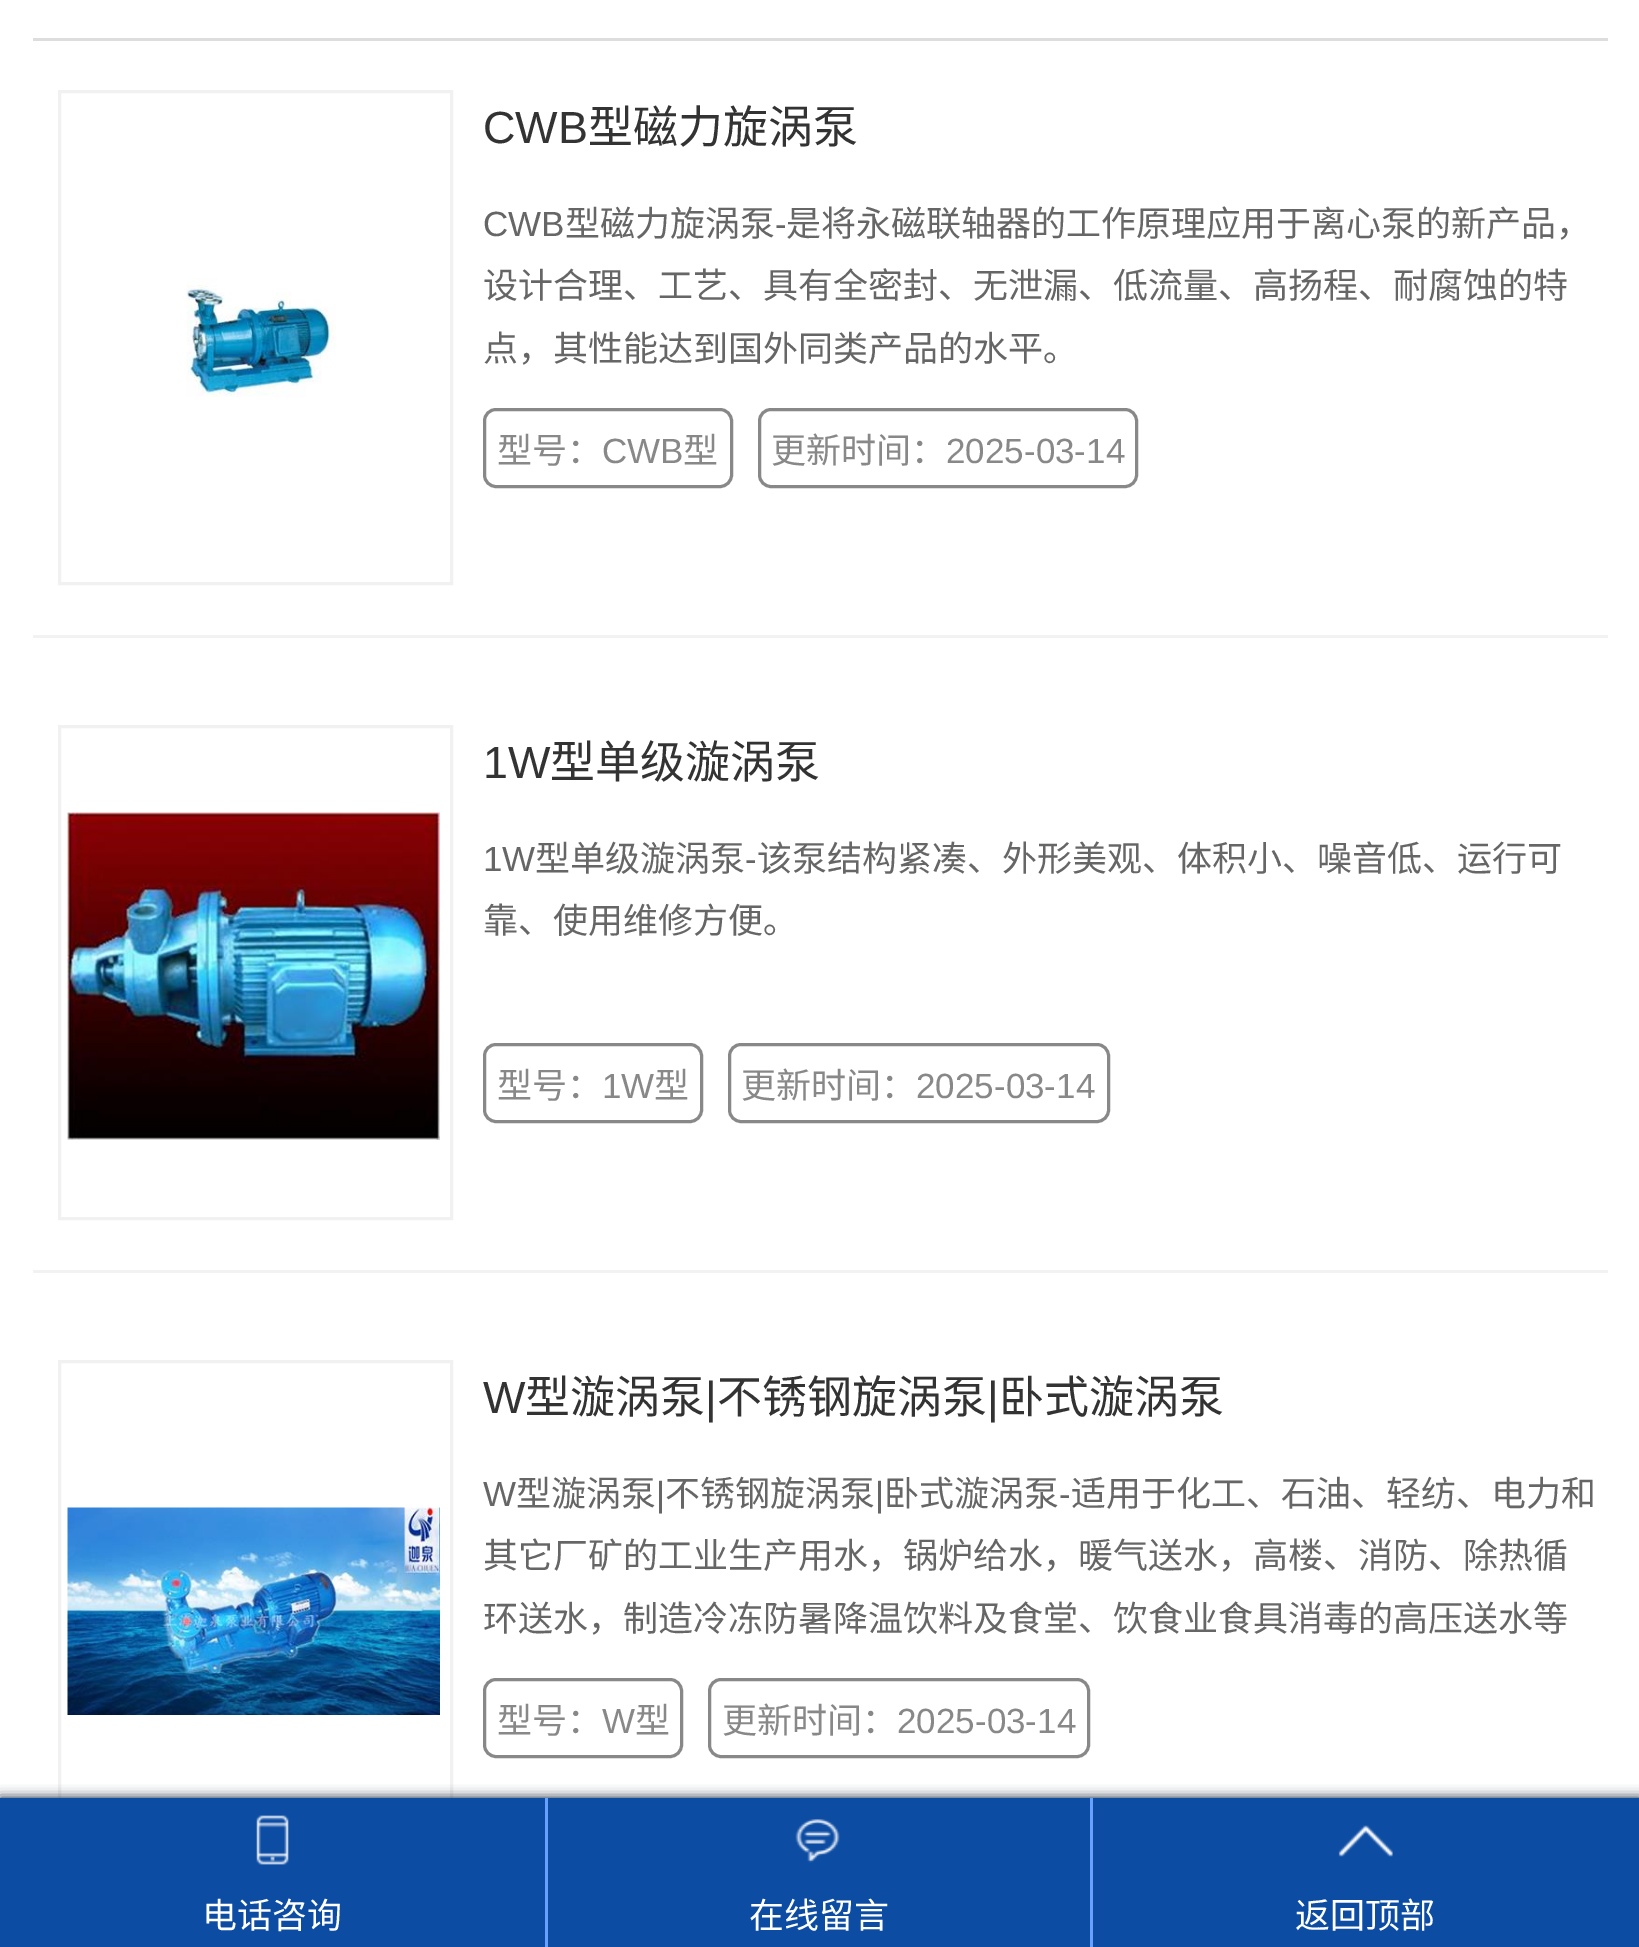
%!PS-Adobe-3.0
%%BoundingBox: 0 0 1639 1947
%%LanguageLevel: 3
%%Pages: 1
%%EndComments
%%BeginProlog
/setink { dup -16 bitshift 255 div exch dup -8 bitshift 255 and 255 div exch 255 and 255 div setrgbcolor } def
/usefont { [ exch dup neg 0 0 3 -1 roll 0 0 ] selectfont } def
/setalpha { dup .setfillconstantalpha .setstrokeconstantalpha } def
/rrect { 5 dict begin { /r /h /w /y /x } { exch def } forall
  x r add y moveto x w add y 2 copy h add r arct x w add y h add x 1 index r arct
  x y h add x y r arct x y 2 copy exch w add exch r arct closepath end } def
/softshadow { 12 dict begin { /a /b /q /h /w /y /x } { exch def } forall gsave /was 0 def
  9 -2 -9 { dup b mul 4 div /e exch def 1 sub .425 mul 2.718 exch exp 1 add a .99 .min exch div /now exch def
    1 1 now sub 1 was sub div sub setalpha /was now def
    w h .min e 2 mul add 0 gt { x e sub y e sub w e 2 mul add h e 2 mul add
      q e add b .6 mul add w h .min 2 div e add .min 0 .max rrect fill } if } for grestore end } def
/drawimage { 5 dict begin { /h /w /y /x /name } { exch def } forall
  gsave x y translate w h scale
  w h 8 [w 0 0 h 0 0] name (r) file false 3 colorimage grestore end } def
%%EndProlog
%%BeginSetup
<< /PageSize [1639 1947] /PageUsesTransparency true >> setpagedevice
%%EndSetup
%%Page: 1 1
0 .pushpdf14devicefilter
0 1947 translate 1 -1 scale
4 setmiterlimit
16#FFFFFF setink
0 0 1639 1947 rectfill
16#DDDDDD setink
33 38 1575 3 rectfill
16#F2F2F2 setink
33 635 1575 3 rectfill
16#F1F1F1 setink
3 setlinewidth
59.5 91.5 392 492 rectstroke
(img1.raw) 186 278 150 119 drawimage
/LiberationSans-Regular 45 usefont
16#333333 setink
483 143 moveto (CWB) show
/NotoSansCJKSC-Regular 45 usefont
588 143 moveto (型磁力旋涡泵) show
/LiberationSans-Regular 35 usefont
16#666666 setink
483 236 moveto (CWB) show
/NotoSansCJKSC-Regular 35 usefont
565 236 moveto (型磁力旋涡泵) show
/LiberationSans-Regular 35 usefont
775 236 moveto (-) show
/NotoSansCJKSC-Regular 35 usefont
[
    [(是将永磁联轴器的工作原理应用于离心泵的新产品，) 786 236]
    [(设计合理、工艺、具有全密封、无泄漏、低流量、高扬程、耐腐蚀的特) 483 298]
    [(点，其性能达到国外同类产品的水平。) 483 361]
] { aload pop moveto show } forall
16#888888 setink
484.5 409.5 247 77 11.5 rrect stroke
497 463 moveto (型号：) show
/LiberationSans-Regular 35 usefont
602 463 moveto (CWB) show
/NotoSansCJKSC-Regular 35 usefont
683 463 moveto (型) show
759.5 409.5 377 77 11.5 rrect stroke
771 463 moveto (更新时间：) show
/LiberationSans-Regular 35 usefont
946 463 moveto (2025-03-14) show
16#F2F2F2 setink
33 1270 1575 3 rectfill
16#F1F1F1 setink
59.5 726.5 392 492 rectstroke
(img2.raw) 67 812 373 328 drawimage
/LiberationSans-Regular 45 usefont
16#333333 setink
483 778 moveto (1W) show
/NotoSansCJKSC-Regular 45 usefont
550 778 moveto (型单级漩涡泵) show
/LiberationSans-Regular 35 usefont
16#666666 setink
483 871 moveto (1W) show
/NotoSansCJKSC-Regular 35 usefont
535 871 moveto (型单级漩涡泵) show
/LiberationSans-Regular 35 usefont
745 871 moveto (-) show
/NotoSansCJKSC-Regular 35 usefont
757 871 moveto (该泵结构紧凑、外形美观、体积小、噪音低、运行可) show
483 933 moveto (靠、使用维修方便。) show
16#888888 setink
484.5 1044.5 217 77 11.5 rrect stroke
497 1098 moveto (型号：) show
/LiberationSans-Regular 35 usefont
602 1098 moveto (1W) show
/NotoSansCJKSC-Regular 35 usefont
654 1098 moveto (型) show
729.5 1044.5 379 77 11.5 rrect stroke
741 1098 moveto (更新时间：) show
/LiberationSans-Regular 35 usefont
916 1098 moveto (2025-03-14) show
16#F1F1F1 setink
59.5 1361.5 392 492 rectstroke
(img3.raw) 67 1507 373 208 drawimage
/LiberationSans-Regular 45 usefont
16#333333 setink
483 1413 moveto (W) show
/NotoSansCJKSC-Regular 45 usefont
525 1413 moveto (型漩涡泵) show
/LiberationSans-Regular 45 usefont
705 1413 moveto (|) show
/NotoSansCJKSC-Regular 45 usefont
717 1413 moveto (不锈钢旋涡泵) show
/LiberationSans-Regular 45 usefont
987 1413 moveto (|) show
/NotoSansCJKSC-Regular 45 usefont
999 1413 moveto (卧式漩涡泵) show
/LiberationSans-Regular 35 usefont
16#666666 setink
483 1506 moveto (W) show
/NotoSansCJKSC-Regular 35 usefont
516 1506 moveto (型漩涡泵) show
/LiberationSans-Regular 35 usefont
656 1506 moveto (|) show
/NotoSansCJKSC-Regular 35 usefont
665 1506 moveto (不锈钢旋涡泵) show
/LiberationSans-Regular 35 usefont
875 1506 moveto (|) show
/NotoSansCJKSC-Regular 35 usefont
884 1506 moveto (卧式漩涡泵) show
/LiberationSans-Regular 35 usefont
1059 1506 moveto (-) show
/NotoSansCJKSC-Regular 35 usefont
[
    [(适用于化工、石油、轻纺、电力和) 1071 1506]
    [(其它厂矿的工业生产用水，锅炉给水，暖气送水，高楼、消防、除热循) 483 1568]
    [(环送水，制造冷冻防暑降温饮料及食堂、饮食业食具消毒的高压送水等) 483 1631]
] { aload pop moveto show } forall
16#888888 setink
484.5 1679.5 197 77 11.5 rrect stroke
497 1733 moveto (型号：) show
/LiberationSans-Regular 35 usefont
602 1733 moveto (W) show
/NotoSansCJKSC-Regular 35 usefont
635 1733 moveto (型) show
709.5 1679.5 379 77 11.5 rrect stroke
722 1733 moveto (更新时间：) show
/LiberationSans-Regular 35 usefont
897 1733 moveto (2025-03-14) show
16#06172D setink
0 1798 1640 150 0 6 1 softshadow
16#0C4CA3 setink
0 1798 1639 149 rectfill
(img4.raw) 256 1815 33 50 drawimage
/NotoSansCJKSC-Regular 35 usefont
16#FFFFFF setink
202 1928 moveto (电话咨询) show
16#68A0FF setink
545 1798 3 149 rectfill
(img5.raw) 795 1819 45 44 drawimage
16#FFFFFF setink
749 1928 moveto (在线留言) show
16#68A0FF setink
1090 1798 3 149 rectfill
(img6.raw) 1338 1825 55 32 drawimage
16#FFFFFF setink
1295 1928 moveto (返回顶部) show
.poppdf14devicefilter showpage
%%EOF
